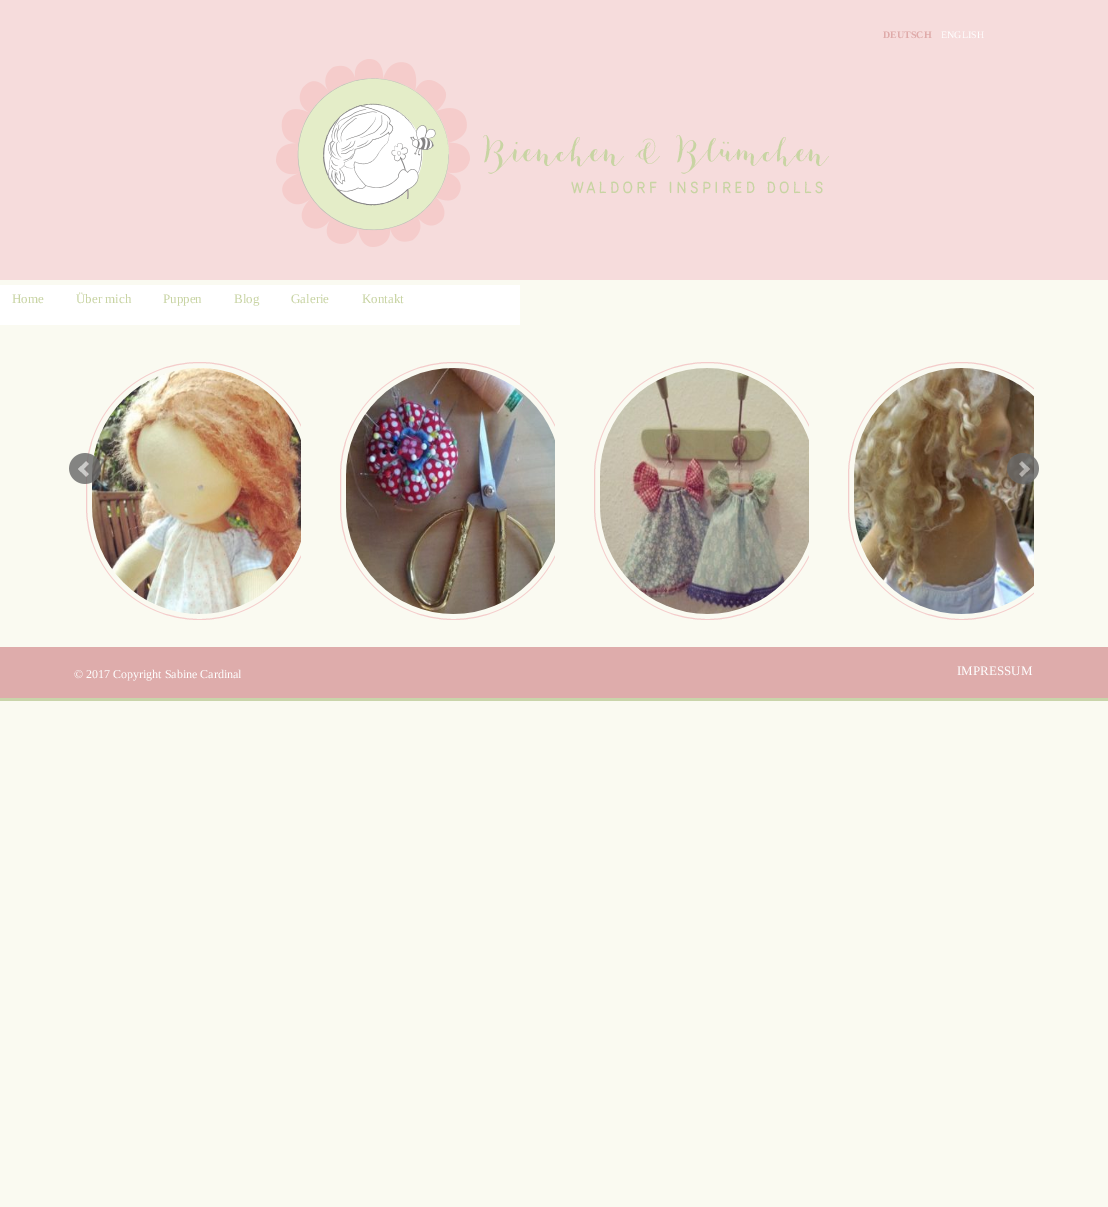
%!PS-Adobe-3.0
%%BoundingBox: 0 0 1108 1207
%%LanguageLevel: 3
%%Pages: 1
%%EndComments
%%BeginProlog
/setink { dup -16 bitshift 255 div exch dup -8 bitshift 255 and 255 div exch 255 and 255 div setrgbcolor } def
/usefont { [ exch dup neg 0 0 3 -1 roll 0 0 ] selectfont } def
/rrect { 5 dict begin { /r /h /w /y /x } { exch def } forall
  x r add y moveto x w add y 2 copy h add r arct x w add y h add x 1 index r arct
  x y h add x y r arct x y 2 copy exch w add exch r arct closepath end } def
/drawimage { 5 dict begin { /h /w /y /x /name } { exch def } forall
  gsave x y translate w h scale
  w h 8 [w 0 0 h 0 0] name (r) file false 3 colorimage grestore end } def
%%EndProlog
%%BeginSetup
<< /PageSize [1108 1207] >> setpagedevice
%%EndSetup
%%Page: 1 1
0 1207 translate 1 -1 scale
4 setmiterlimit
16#FAFAF1 setink
0 0 1108 1207 rectfill
16#F6DCDC setink
0 0 1108 280 rectfill
/LiberationSerif-Bold 10 usefont
16#DFAAA9 setink
883 38 moveto (DEUTSCH) show
/LiberationSerif-Regular 10 usefont
16#FFFFFF setink
941 38 moveto (ENGLISH) show
(img1.raw) 276 59 553 188 drawimage
0 285 520 40 rectfill
/LiberationSerif-Regular 13 usefont
16#C8D4A3 setink
[
    [(Home) 12 303]
    [(Über mich) 76 303]
    [(Puppen) 163 303]
    [(Blog) 234 303]
    [(Galerie) 291 303]
    [(Kontakt) 362 303]
] { aload pop moveto show } forall
gsave
86 362 215 258 rectclip
16#F4CCCB setink
86.5 362.5 226 257 113 rrect stroke
grestore
(img2.raw) 92 368 209 246 drawimage
gsave
340 362 215 258 rectclip
16#F4CCCB setink
340.5 362.5 226 257 113 rrect stroke
grestore
(img3.raw) 346 368 209 246 drawimage
gsave
594 362 215 258 rectclip
16#F4CCCB setink
594.5 362.5 226 257 113 rrect stroke
grestore
(img4.raw) 600 368 209 246 drawimage
gsave
848 362 186 258 rectclip
16#F4CCCB setink
848.5 362.5 226 257 113 rrect stroke
grestore
(img5.raw) 854 368 180 246 drawimage
(img6.raw) 69 453 32 31 drawimage
(img7.raw) 1007 453 32 31 drawimage
16#DEACAB setink
0 647 1108 51 rectfill
16#C9D4AA setink
0 698 1108 3 rectfill
/LiberationSerif-Regular 12 usefont
16#FFFFFF setink
74 678 moveto (© 2017 Copyright Sabine Cardinal) show
/LiberationSerif-Regular 13 usefont
957 675 moveto (IMPRESSUM) show
showpage
%%EOF
